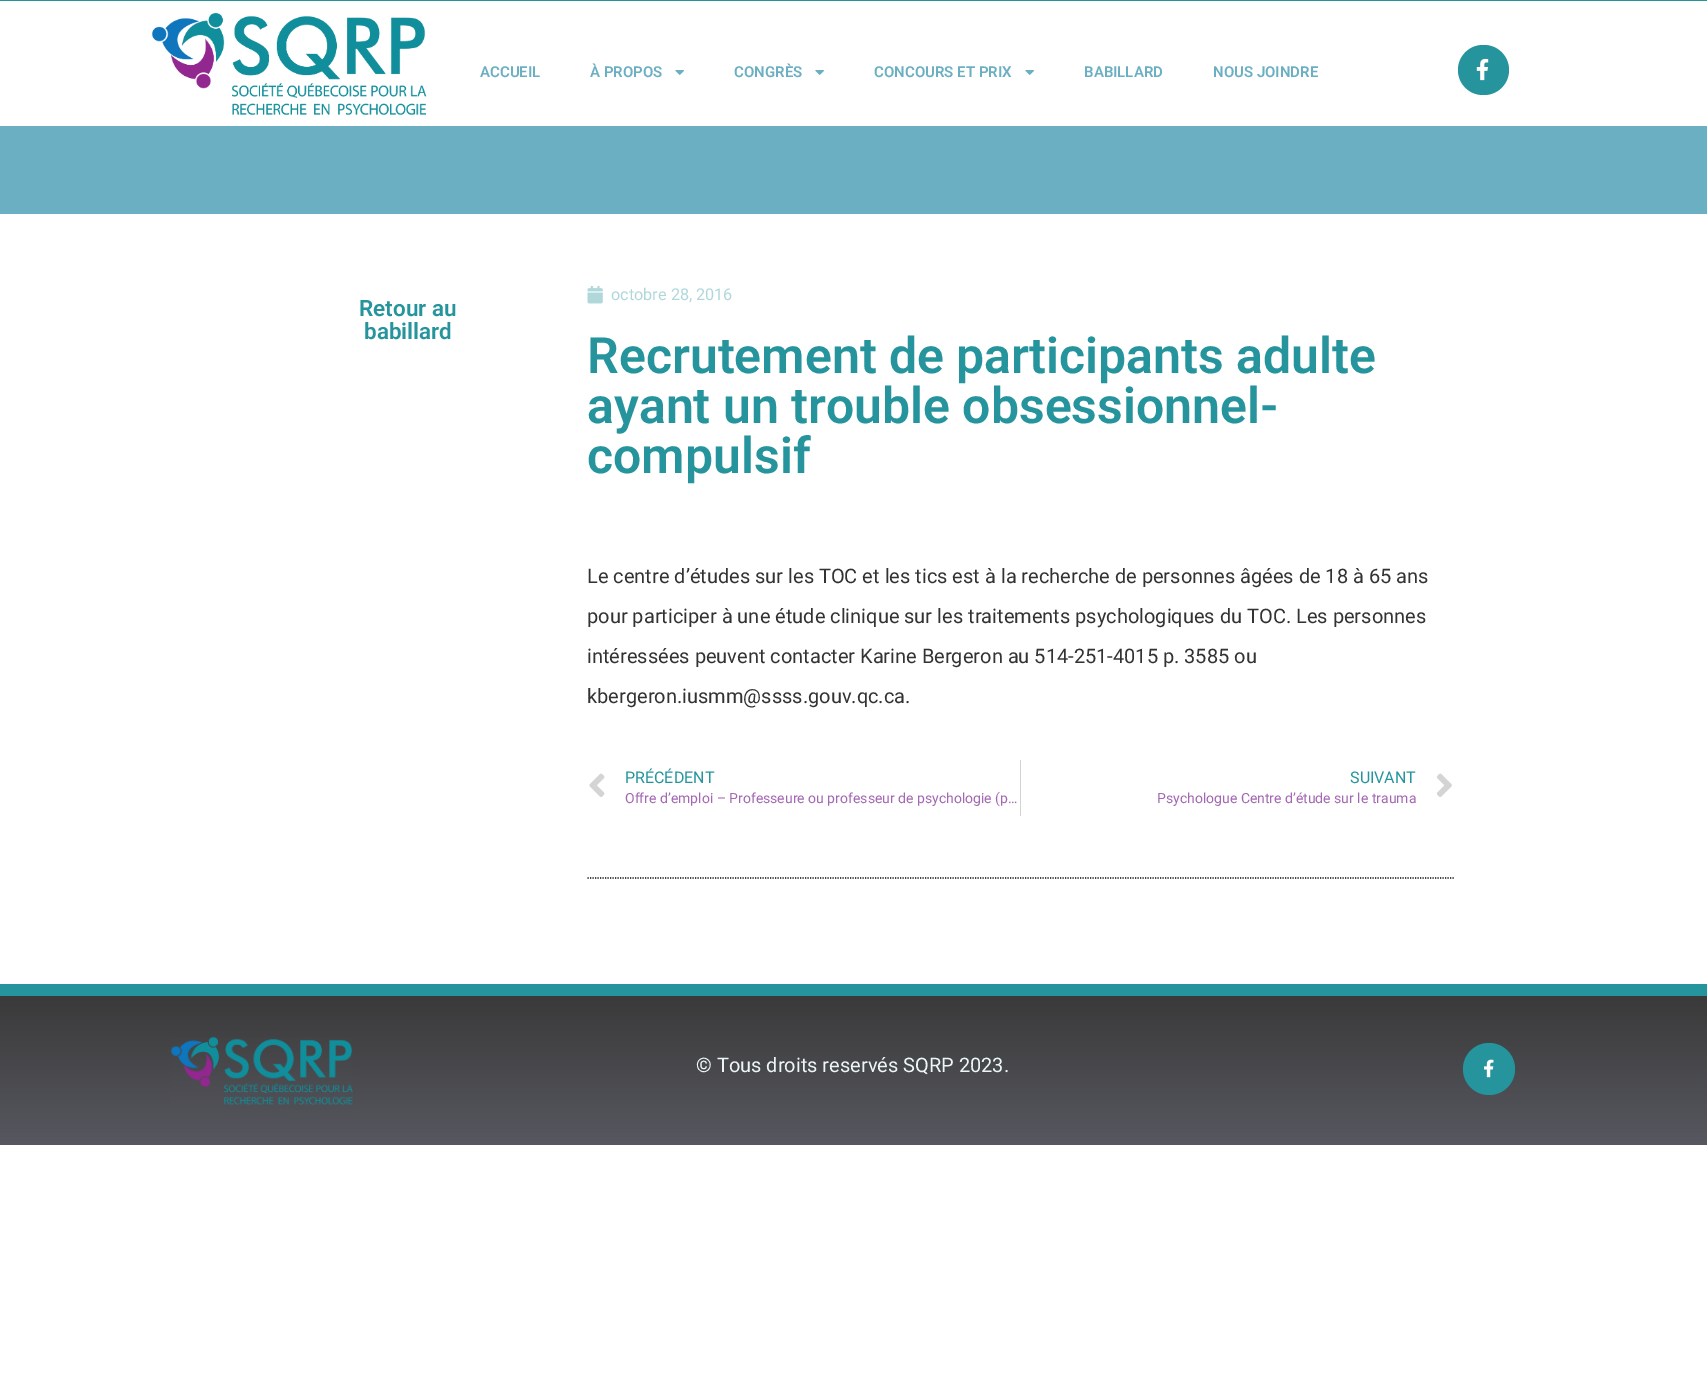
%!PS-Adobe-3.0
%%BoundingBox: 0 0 1707 1398
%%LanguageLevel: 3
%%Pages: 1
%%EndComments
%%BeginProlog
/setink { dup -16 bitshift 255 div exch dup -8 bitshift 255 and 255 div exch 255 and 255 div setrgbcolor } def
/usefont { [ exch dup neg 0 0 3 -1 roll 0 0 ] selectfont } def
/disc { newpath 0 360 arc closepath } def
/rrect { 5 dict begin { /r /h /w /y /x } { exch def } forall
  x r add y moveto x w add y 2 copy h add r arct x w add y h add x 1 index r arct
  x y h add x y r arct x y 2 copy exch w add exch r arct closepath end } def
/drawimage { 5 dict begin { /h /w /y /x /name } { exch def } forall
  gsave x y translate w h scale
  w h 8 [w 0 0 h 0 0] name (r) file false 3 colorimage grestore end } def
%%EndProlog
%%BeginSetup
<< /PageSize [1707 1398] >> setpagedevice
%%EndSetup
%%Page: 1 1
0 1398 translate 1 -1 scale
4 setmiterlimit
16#FFFFFF setink
0 0 1707 1398 rectfill
16#25949D setink
0 0 1707 1 rectfill
(img1.raw) 151 12 276 104 drawimage
/Roboto-SemiBold 15 usefont
16#6AAFC2 setink
480 77 moveto (ACCUEIL) show
590 77 moveto (À PROPOS) show
(img2.raw) 675 70 9 5 drawimage
734 77 moveto (CONGRÈS) show
(img2.raw) 815 70 9 5 drawimage
874 77 moveto (CONCOURS ET PRIX) show
(img2.raw) 1025 70 9 5 drawimage
1084 77 moveto (BABILLARD) show
1213 77 moveto (NOUS JOINDRE) show
16#25949D setink
1458 45 51 50 25 rrect fill
(img3.raw) 1476 58 13 23 drawimage
16#6AAFC2 setink
0 126 1707 88 rectfill
/Roboto-SemiBold 22.5 usefont
16#25949D setink
359 316 moveto (Retour au) show
364 339 moveto (babillard) show
(img4.raw) 587 285 16 19 drawimage
/Roboto-Regular 16.25 usefont
16#B0D8DB setink
611 300 moveto (octobre 28, 2016) show
/Roboto-SemiBold 50 usefont
16#25949D setink
[
    [(Recrutement de participants adulte) 587 373]
    [(ayant un trouble obsessionnel-) 587 423]
    [(compulsif) 587 473]
] { aload pop moveto show } forall
/Roboto-Regular 20 usefont
16#333333 setink
[
    [(Le centre d’études sur les TOC et les tics est à la recherche de personnes âgées de 18 à 65 ans) 587 583]
    [(pour participer à une étude clinique sur les traitements psychologiques du TOC. Les personnes) 587 623]
    [(intéressées peuvent contacter Karine Bergeron au 514-251-4015 p. 3585 ou) 587 663]
    [(kbergeron.iusmm@ssss.gouv.qc.ca.) 587 703]
] { aload pop moveto show } forall
(img5.raw) 589 773 16 24 drawimage
/Roboto-Regular 16 usefont
16#25949D setink
625 783 moveto (PRÉCÉDENT) show
/Roboto-Regular 14 usefont
16#A467B4 setink
625 803 moveto (Offre d’emploi – Professeure ou professeur de psychologie \(p…) show
16#D4D4D4 setink
1020 760 1 56 rectfill
/Roboto-Regular 16 usefont
16#25949D setink
1350 783 moveto (SUIVANT) show
/Roboto-Regular 14 usefont
16#A467B4 setink
1157 803 moveto (Psychologue Centre d’étude sur le trauma) show
(img6.raw) 1436 773 16 24 drawimage
16#000000 setink
1.2 setlinewidth
[1.25 1.25] 0 setdash
587.5 878 moveto 1454 878 lineto stroke
gsave 0 996 moveto 1707 996 lineto 1707 1145 lineto 0 1145 lineto closepath clip newpath
<< /ShadingType 2 /ColorSpace /DeviceRGB /Coords [854 1145 854 996] /Extend [true true] /Function << /FunctionType 2 /Domain [0 1] /C0 [0.341 0.345 0.376] /C1 [0.227 0.227 0.227] /N 1 >> >> shfill grestore
16#25949D setink
0 984 1707 12 rectfill
(img7.raw) 170 1036 183 69 drawimage
/Roboto-Regular 20 usefont
16#EDF6F7 setink
696 1072 moveto (© Tous droits reservés SQRP 2023.) show
16#25949D setink
1489 1069 26 disc fill
(img8.raw) 1484 1059 10 19 drawimage
showpage
%%EOF
